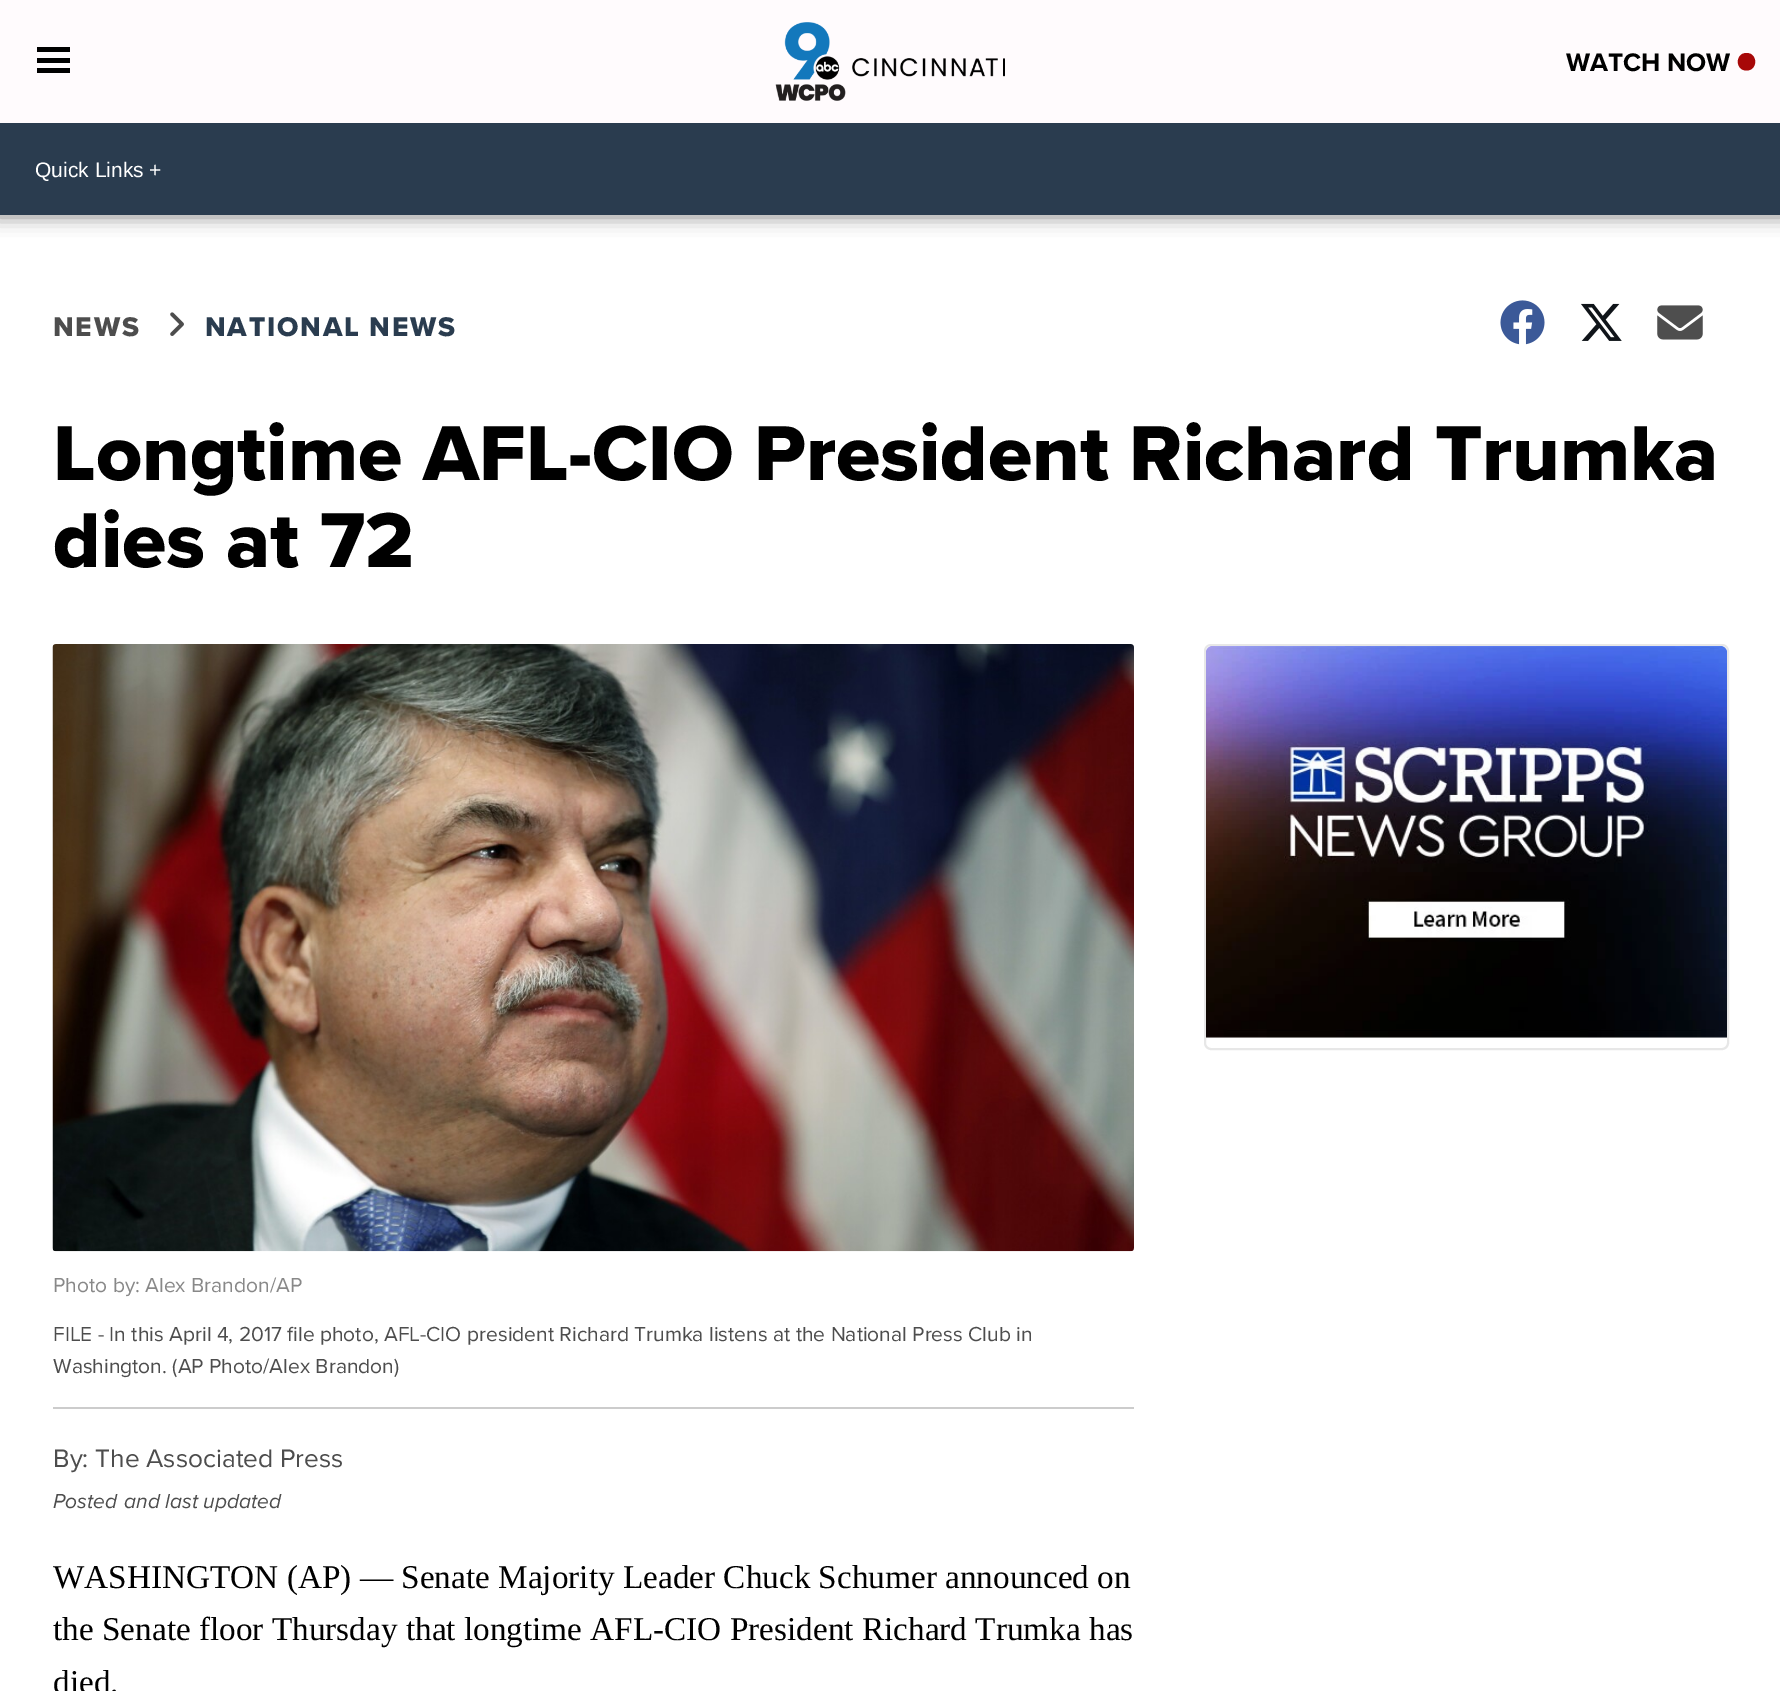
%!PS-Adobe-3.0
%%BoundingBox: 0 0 1780 1691
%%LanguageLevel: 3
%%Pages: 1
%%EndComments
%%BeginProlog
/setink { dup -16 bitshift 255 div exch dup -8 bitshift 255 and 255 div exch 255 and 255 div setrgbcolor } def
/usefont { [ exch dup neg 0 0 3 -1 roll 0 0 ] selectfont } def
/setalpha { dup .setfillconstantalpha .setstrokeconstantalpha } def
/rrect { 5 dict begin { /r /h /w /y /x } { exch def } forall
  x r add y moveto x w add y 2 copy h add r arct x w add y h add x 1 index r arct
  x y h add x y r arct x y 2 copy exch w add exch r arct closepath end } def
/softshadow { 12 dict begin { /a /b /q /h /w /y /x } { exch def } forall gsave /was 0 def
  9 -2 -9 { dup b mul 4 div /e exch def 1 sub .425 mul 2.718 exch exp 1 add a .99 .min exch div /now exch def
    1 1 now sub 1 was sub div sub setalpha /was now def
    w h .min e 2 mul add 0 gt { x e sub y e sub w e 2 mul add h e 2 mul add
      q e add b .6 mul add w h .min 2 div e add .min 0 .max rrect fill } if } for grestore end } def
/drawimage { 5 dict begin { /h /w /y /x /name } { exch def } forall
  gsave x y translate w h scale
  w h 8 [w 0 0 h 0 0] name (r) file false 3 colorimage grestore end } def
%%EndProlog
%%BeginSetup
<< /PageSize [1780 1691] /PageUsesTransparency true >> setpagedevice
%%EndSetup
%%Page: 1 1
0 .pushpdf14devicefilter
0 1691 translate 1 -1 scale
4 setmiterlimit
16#FFFFFF setink
0 0 1780 1691 rectfill
16#616161 setink
-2 -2 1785 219 0 9 0.76 softshadow
[
    [0 0 1780 123 16#FFFBFD]
    [37 47 33 5 16#000000]
    [37 58 33 5 16#000000]
    [37 68 33 5 16#000000]
] { aload pop setink rectfill } forall
(img1.raw) 775 22 230 79 drawimage
/ProximaNova-Bold 26.25 usefont
1566 71 moveto (WATCH NOW) show
16#A70808 setink
1746.5 70.5 moveto 1758 70.5 1758 53 1746.5 53 curveto 1735 53 1735 70.5 1746.5 70.5 curveto closepath fill
16#2A3C4F setink
0 123 1780 92 rectfill
/LiberationSans-Regular 21 usefont
16#FFFFFF setink
35 177 moveto (Quick Links +) show
/ProximaNova-ExtraBold 28 usefont
16#4D4D4D setink
53 336 moveto 1.75 0 (NEWS) ashow
(img2.raw) 170 312 14 24 drawimage
16#2A3C4F setink
205 336 moveto 1.75 0 (NATIONAL NEWS) ashow
(img3.raw) 1500 300 45 45 drawimage
(img4.raw) 1581 303 41 38 drawimage
(img5.raw) 1657 305 46 35 drawimage
/ProximaNova-ExtraBold 80.5 usefont
16#000000 setink
53 480 moveto (Longtime AFL-CIO President Richard Trumka) show
53 567 moveto (dies at 72) show
16#E7E7E7 setink
2 setlinewidth
1205 645 523 404 6 rrect stroke
(img6.raw) 1206 646 521 392 drawimage
16#CCCCCC setink
53 1407 1081 2 rectfill
(img7.raw) 52 644 1082 608 drawimage
/ProximaNova-Regular 21 usefont
16#888888 setink
53 1292 moveto (Photo by: Alex Brandon/AP) show
16#4D4D4D setink
53 1341 moveto (FILE - In this April 4, 2017 file photo, AFL-CIO president Richard Trumka listens at the National Press Club in) show
53 1373 moveto (Washington. \(AP Photo/Alex Brandon\)) show
/ProximaNova-Regular 26.25 usefont
53 1467 moveto (By: The Associated Press) show
/ProximaNova-Italic 21 usefont
53 1508 moveto (Posted) show
124 1508 moveto (and last updated) show
/LiberationSerif-Regular 33.25 usefont
16#000000 setink
[
    [(WASHINGTON \(AP\) — Senate Majority Leader Chuck Schumer announced on) 53 1588]
    [(the Senate floor Thursday that longtime AFL-CIO President Richard Trumka has) 53 1640]
    [(died.) 53 1693]
] { aload pop moveto show } forall
.poppdf14devicefilter showpage
%%EOF
